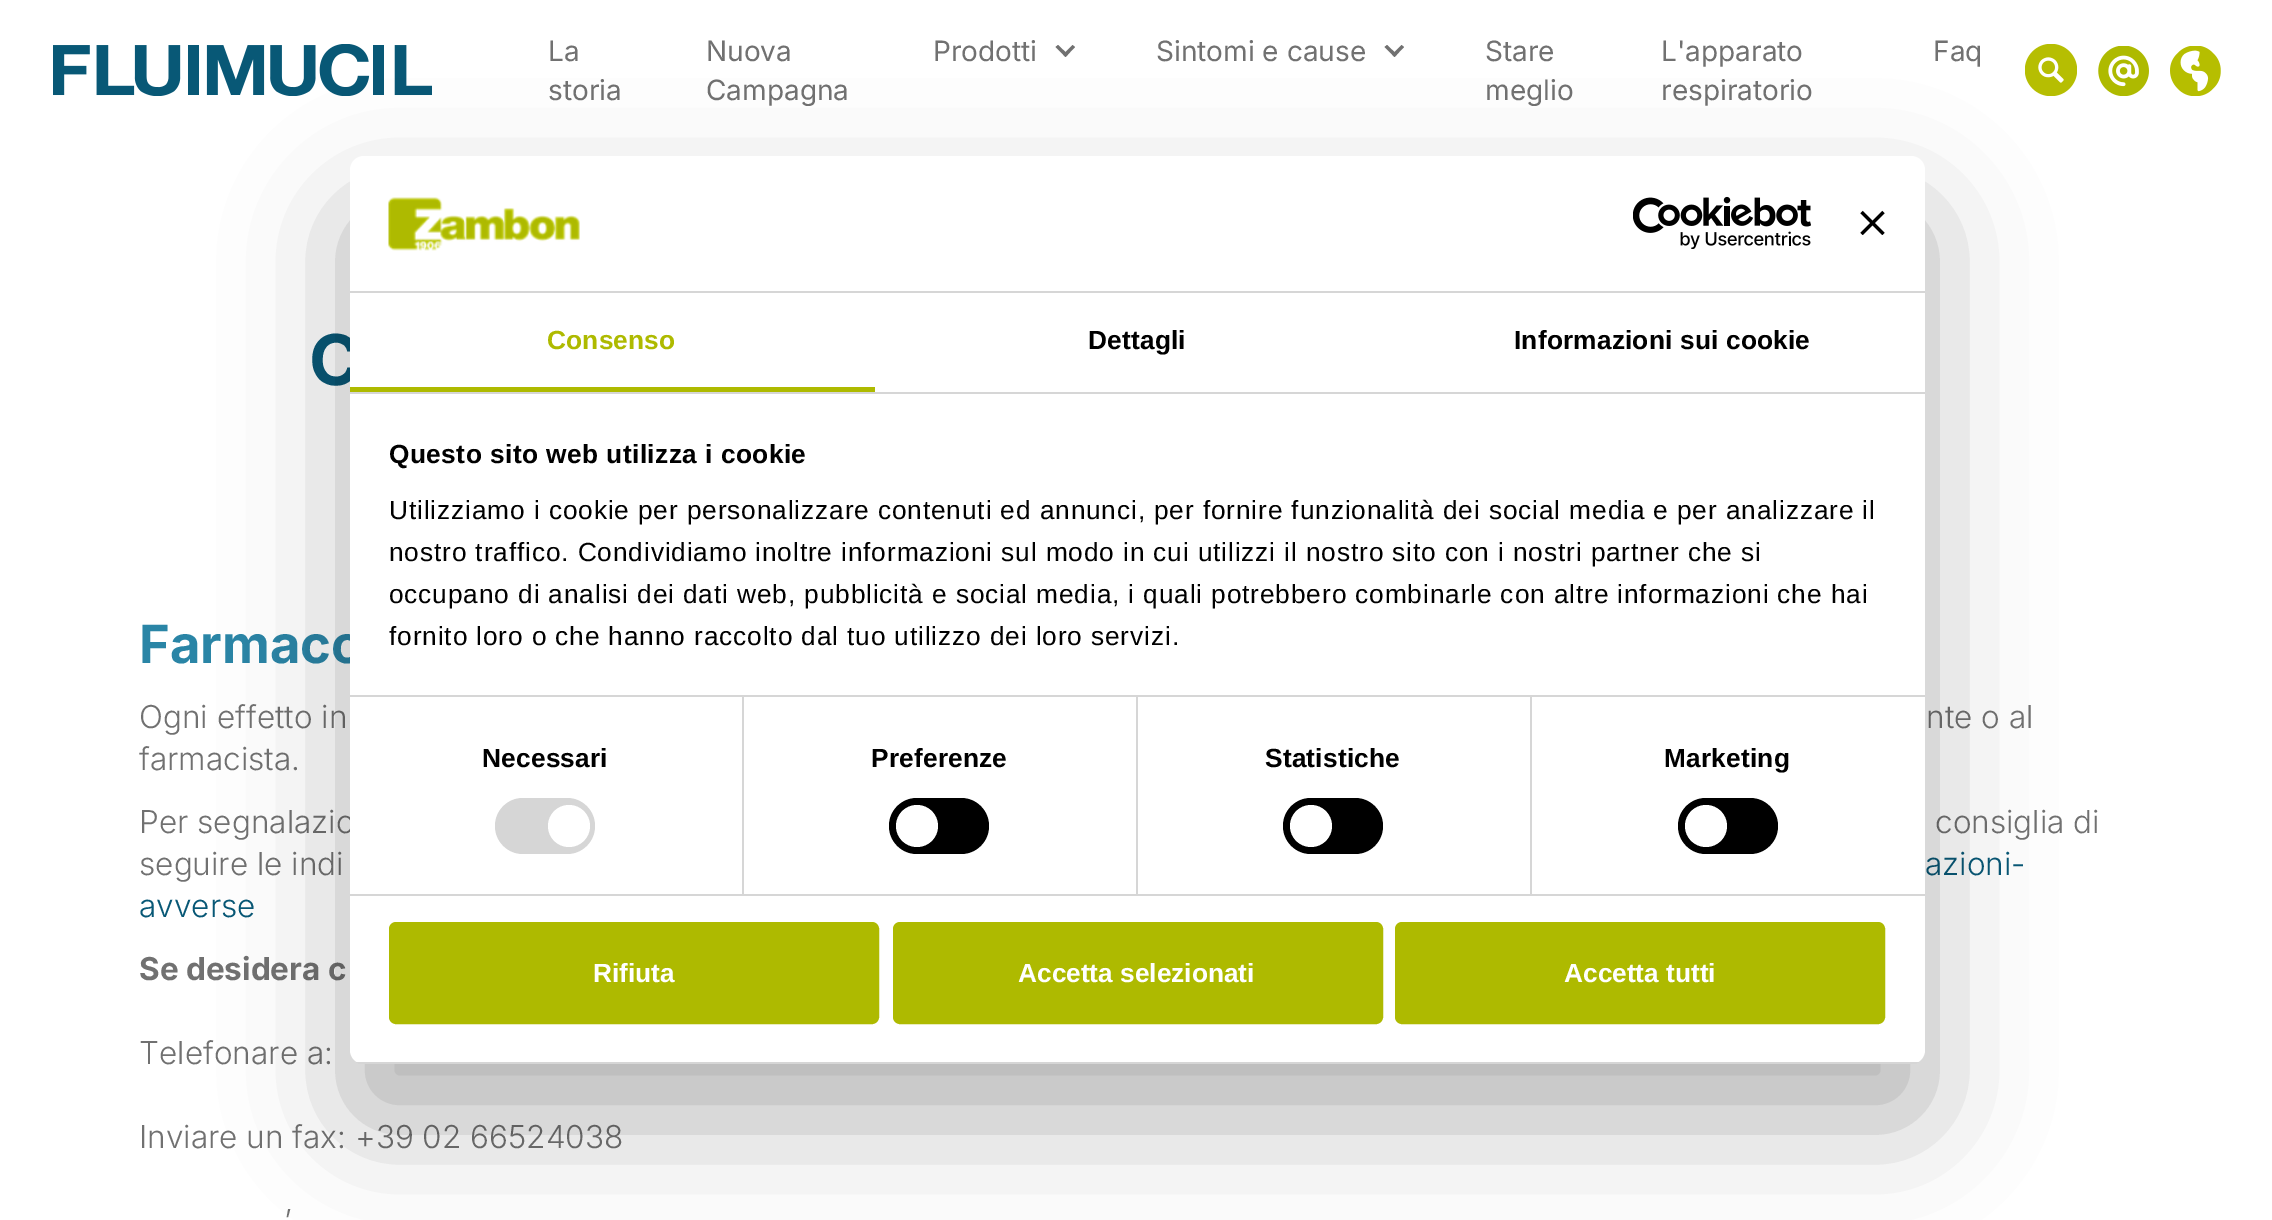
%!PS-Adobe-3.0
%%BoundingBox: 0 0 2272 1220
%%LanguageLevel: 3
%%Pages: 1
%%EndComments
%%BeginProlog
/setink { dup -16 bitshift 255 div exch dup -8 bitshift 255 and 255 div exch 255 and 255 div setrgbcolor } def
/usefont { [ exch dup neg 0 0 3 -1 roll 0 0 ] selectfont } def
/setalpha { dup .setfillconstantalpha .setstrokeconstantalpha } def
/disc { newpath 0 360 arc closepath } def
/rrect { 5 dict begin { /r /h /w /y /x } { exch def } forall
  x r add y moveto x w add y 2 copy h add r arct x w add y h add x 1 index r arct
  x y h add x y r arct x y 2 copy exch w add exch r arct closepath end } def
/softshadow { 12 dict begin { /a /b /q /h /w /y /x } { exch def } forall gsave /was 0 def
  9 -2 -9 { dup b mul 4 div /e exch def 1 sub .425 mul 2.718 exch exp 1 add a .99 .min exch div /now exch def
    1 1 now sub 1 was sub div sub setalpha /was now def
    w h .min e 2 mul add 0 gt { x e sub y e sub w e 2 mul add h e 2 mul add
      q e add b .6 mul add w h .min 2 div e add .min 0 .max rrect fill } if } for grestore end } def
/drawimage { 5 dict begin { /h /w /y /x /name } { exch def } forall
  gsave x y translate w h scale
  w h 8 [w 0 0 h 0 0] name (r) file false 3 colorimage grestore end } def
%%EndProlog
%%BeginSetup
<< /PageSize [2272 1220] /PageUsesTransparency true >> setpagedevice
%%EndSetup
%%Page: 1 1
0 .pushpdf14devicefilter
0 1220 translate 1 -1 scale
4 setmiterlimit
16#FFFFFF setink
0 0 2272 1220 rectfill
(img1.raw) 53 44 379 52 drawimage
/Inter-Regular 28 usefont
16#717171 setink
[
    [(La) 548 61]
    [(storia) 548 100]
    [(Nuova) 706 61]
    [(Campagna) 706 100]
    [(Prodotti) 933 61]
] { aload pop moveto show } forall
1072.5 45 moveto 1075 47 lineto 1065.5 57 lineto 1063 54.5 lineto closepath fill
1058 45 moveto 1068 54.5 lineto 1065.5 57 lineto 1055.5 47 lineto closepath fill
1156 61 moveto (Sintomi e cause) show
1401.5 45 moveto 1404 47 lineto 1394.5 57 lineto 1392 54.5 lineto closepath fill
1387 45 moveto 1397 54.5 lineto 1394.5 57 lineto 1384.5 47 lineto closepath fill
[
    [(Stare) 1485 61]
    [(meglio) 1485 100]
    [(L'apparato) 1661 61]
    [(respiratorio) 1661 100]
    [(Faq) 1933 61]
] { aload pop moveto show } forall
(img2.raw) 2025 44 52 52 drawimage
(img3.raw) 2098 46 51 50 drawimage
(img4.raw) 2170 46 51 50 drawimage
/Inter-Bold 70 usefont
16#085876 setink
309 385 moveto (C) show
/Inter-Bold 52.5 usefont
16#2A85A6 setink
139 663 moveto (Farmaco) show
/Inter-Light 31.5 usefont
16#717171 setink
[
    [(Ogni effetto in) 139 728]
    [(nte o al) 1926 728]
    [(farmacista.) 139 770]
    [(Per segnalazio) 139 833]
    [(consiglia di) 1935 833]
    [(seguire le indi) 139 875]
] { aload pop moveto show } forall
16#085876 setink
1925 875 moveto (azioni-) show
139 917 moveto (avverse) show
/Inter-Bold 31.5 usefont
16#717171 setink
139 980 moveto (Se desidera c) show
/Inter-Light 31.5 usefont
[
    [(Telefonare a:) 139 1064]
    [(Inviare un fax: +39 02 66524038) 139 1148]
    [(’) 284 1232]
] { aload pop moveto show } forall
16#000000 setink
350 212 1575 908 14 59.5 0.3 softshadow
16#FFFFFF setink
350 156 1575 908 14 rrect fill
16#D6D6D6 setink
350 291 1575 2 rectfill
(img5.raw) 388 197 192 54 drawimage
(img6.raw) 1633 196 178 53 drawimage
(img7.raw) 1860 210 25 25 drawimage
350 392 1575 2 rectfill
16#AEBA00 setink
350 387 525 5 rectfill
/LiberationSans-Bold 26.25 usefont
547 349 moveto 0.2 0 (Consenso) ashow
16#000000 setink
1088 349 moveto 0.2 0 (Dettagli) ashow
1514 349 moveto 0.2 0 (Informazioni sui cookie) ashow
16#D6D6D6 setink
350 695 1575 2 rectfill
16#000000 setink
389 463 moveto 0.45 0 (Questo sito web utilizza i cookie) ashow
/LiberationSans-Regular 26.25 usefont
389 519 moveto 0.88 0 (Utilizziamo i cookie per personalizzare contenuti ed annunci, per fornire funzionalità dei social media e per analizzare il) ashow
389 561 moveto 0.88 0 (nostro traffico. Condividiamo inoltre informazioni sul modo in cui utilizzi il nostro sito con i nostri partner che si) ashow
389 603 moveto 0.88 0 (occupano di analisi dei dati web, pubblicità e social media, i quali potrebbero combinarle con altre informazioni che hai) ashow
389 645 moveto 0.88 0 (fornito loro o che hanno raccolto dal tuo utilizzo dei loro servizi.) ashow
16#D6D6D6 setink
350 894 1575 2 rectfill
742 697 2 197 rectfill
/LiberationSans-Bold 26.25 usefont
16#000000 setink
482 767 moveto 0.2 0 (Necessari) ashow
16#D6D6D6 setink
495 798 100 56 28 rrect fill
16#FFFFFF setink
569 826 21 disc fill
16#D6D6D6 setink
1136 697 2 197 rectfill
16#000000 setink
871 767 moveto 0.2 0 (Preferenze) ashow
889 798 100 56 28 rrect fill
16#FFFFFF setink
917 826 21 disc fill
16#D6D6D6 setink
1530 697 2 197 rectfill
16#000000 setink
1265 767 moveto 0.2 0 (Statistiche) ashow
1283 798 100 56 28 rrect fill
16#FFFFFF setink
1311 826 21 disc fill
16#000000 setink
1664 767 moveto 0.2 0 (Marketing) ashow
1678 798 100 56 28 rrect fill
16#FFFFFF setink
1706 826 21 disc fill
gsave
350 156 1575 908 14 rrect clip newpath
16#D6D6D6 setink
350 1062 1575 2 rectfill
grestore
16#AEBA00 setink
391 924 486 98 5 rrect gsave fill grestore
4 setlinewidth
stroke
16#FFFFFF setink
593 982 moveto (Rifiuta) show
16#AEBA00 setink
895 924 486 98 5 rrect gsave fill grestore
stroke
16#FFFFFF setink
1018 982 moveto (Accetta selezionati) show
16#AEBA00 setink
1397 924 486 98 5 rrect gsave fill grestore
stroke
16#FFFFFF setink
1564 982 moveto (Accetta tutti) show
.poppdf14devicefilter showpage
%%EOF
